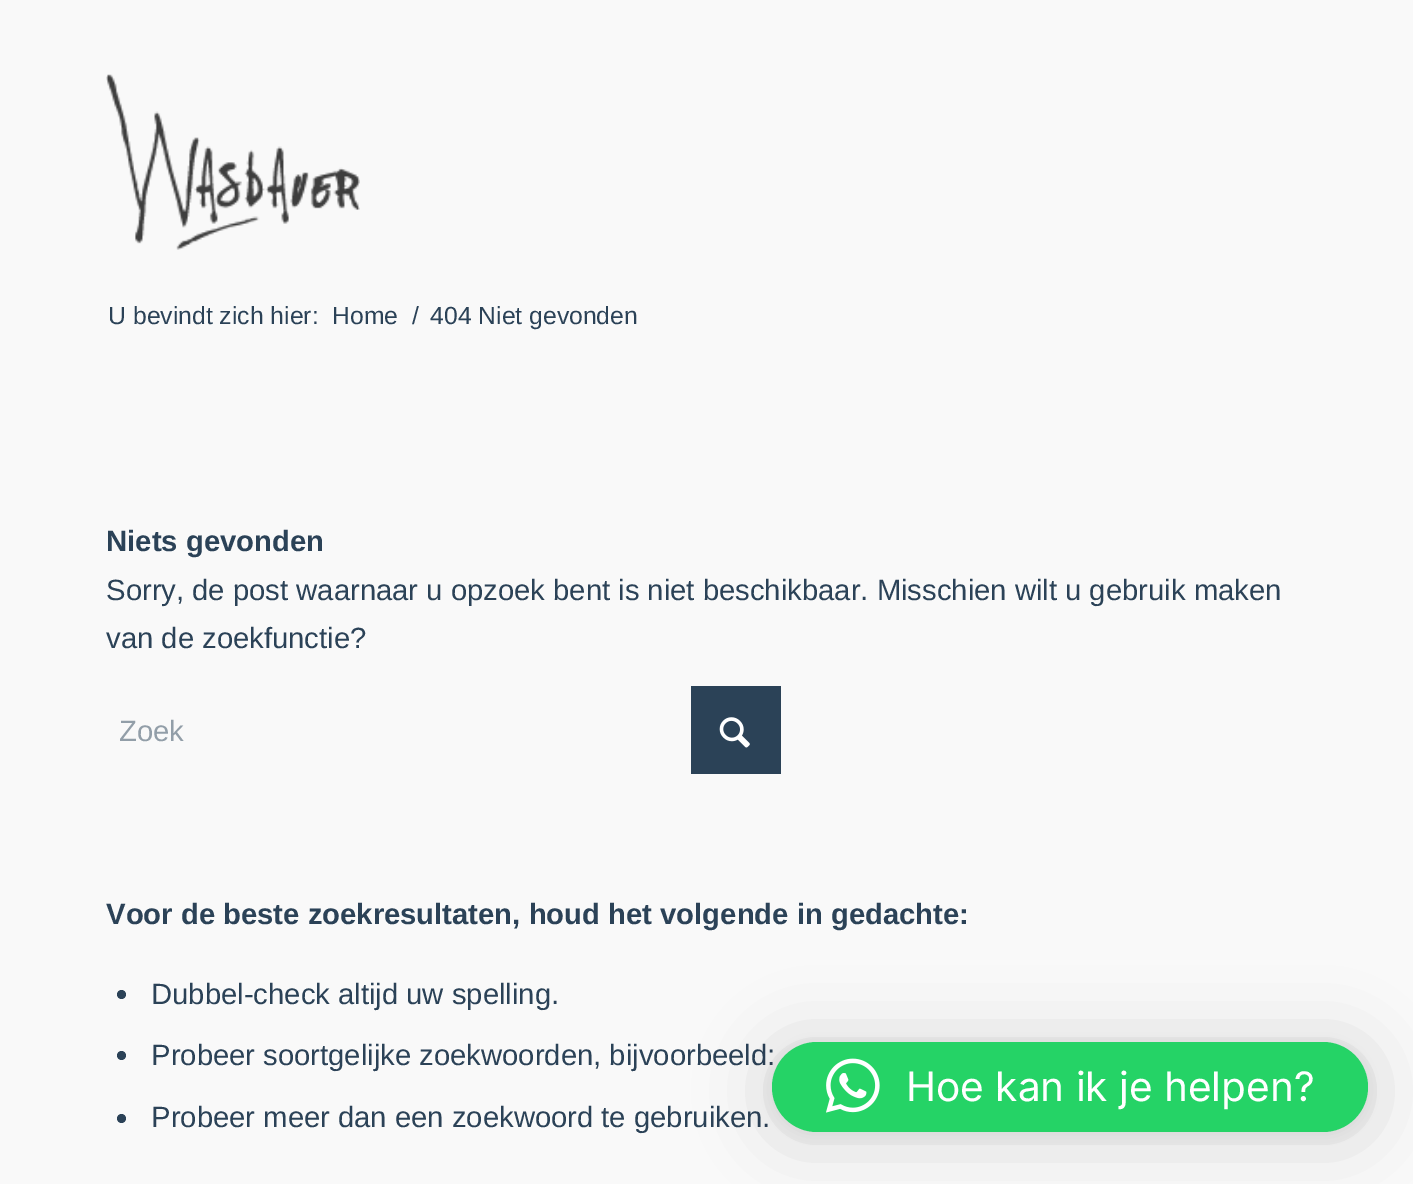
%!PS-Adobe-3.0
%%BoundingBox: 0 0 1413 1184
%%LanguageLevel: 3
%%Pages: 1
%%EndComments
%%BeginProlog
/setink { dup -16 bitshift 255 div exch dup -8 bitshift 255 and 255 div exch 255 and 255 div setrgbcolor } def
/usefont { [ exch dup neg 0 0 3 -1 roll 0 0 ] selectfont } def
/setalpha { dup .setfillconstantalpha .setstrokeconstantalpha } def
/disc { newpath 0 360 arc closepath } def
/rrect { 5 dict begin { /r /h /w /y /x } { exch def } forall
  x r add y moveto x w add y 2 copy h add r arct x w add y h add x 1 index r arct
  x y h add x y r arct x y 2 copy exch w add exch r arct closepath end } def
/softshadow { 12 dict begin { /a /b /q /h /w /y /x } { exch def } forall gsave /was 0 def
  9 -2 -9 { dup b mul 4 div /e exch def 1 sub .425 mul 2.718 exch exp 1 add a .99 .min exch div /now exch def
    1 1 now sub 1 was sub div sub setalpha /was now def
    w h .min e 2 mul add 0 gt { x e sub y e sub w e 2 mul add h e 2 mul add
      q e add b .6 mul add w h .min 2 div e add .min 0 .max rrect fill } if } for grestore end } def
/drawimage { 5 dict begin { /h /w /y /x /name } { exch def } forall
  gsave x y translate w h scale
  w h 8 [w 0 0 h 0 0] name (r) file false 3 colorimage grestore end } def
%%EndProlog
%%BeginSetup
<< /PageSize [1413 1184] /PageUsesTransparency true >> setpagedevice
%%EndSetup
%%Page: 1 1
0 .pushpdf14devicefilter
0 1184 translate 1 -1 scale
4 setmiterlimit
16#F9F9F9 setink
0 0 1413 1184 rectfill
(img1.raw) 106 74 254 176 drawimage
/LiberationSans-Regular 24.75 usefont
16#2B4257 setink
[
    [(U bevindt zich hier:) 108 324]
    [(Home) 332 324]
    [(/) 412 324]
    [(404 Niet gevonden) 430 324]
] { aload pop moveto show } forall
/LiberationSans-Bold 29.25 usefont
106 551 moveto (Niets gevonden) show
/LiberationSans-Regular 29.25 usefont
106 600 moveto (Sorry, de post waarnaar u opzoek bent is niet beschikbaar. Misschien wilt u gebruik maken) show
106 648 moveto (van de zoekfunctie?) show
691 686 90 88 rectfill
16#929EA8 setink
119 741 moveto (Zoek) show
(img2.raw) 719 717 31 31 drawimage
/LiberationSans-Bold 29.25 usefont
16#2B4257 setink
106 924 moveto (Voor de beste zoekresultaten, houd het volgende in gedachte:) show
121.5 994.5 4.5 disc fill
/LiberationSans-Regular 29.25 usefont
151 1004 moveto (Dubbel-check altijd uw spelling.) show
121.5 1055.5 4.5 disc fill
151 1065 moveto (Probeer soortgelijke zoekwoorden, bijvoorbeeld:) show
121.5 1118.5 4.5 disc fill
151 1127 moveto (Probeer meer dan een zoekwoord te gebruiken.) show
16#000000 setink
772 1046 596 90 45 36 0.16 softshadow
772 1044 596 90 45 7 0.06 softshadow
16#25D366 setink
772 1042 596 90 45 rrect fill
(img3.raw) 826 1058 54 55 drawimage
/Inter-Regular 40.5 usefont
16#FFFFFF setink
906 1101 moveto (Hoe kan ik je helpen?) show
.poppdf14devicefilter showpage
%%EOF
